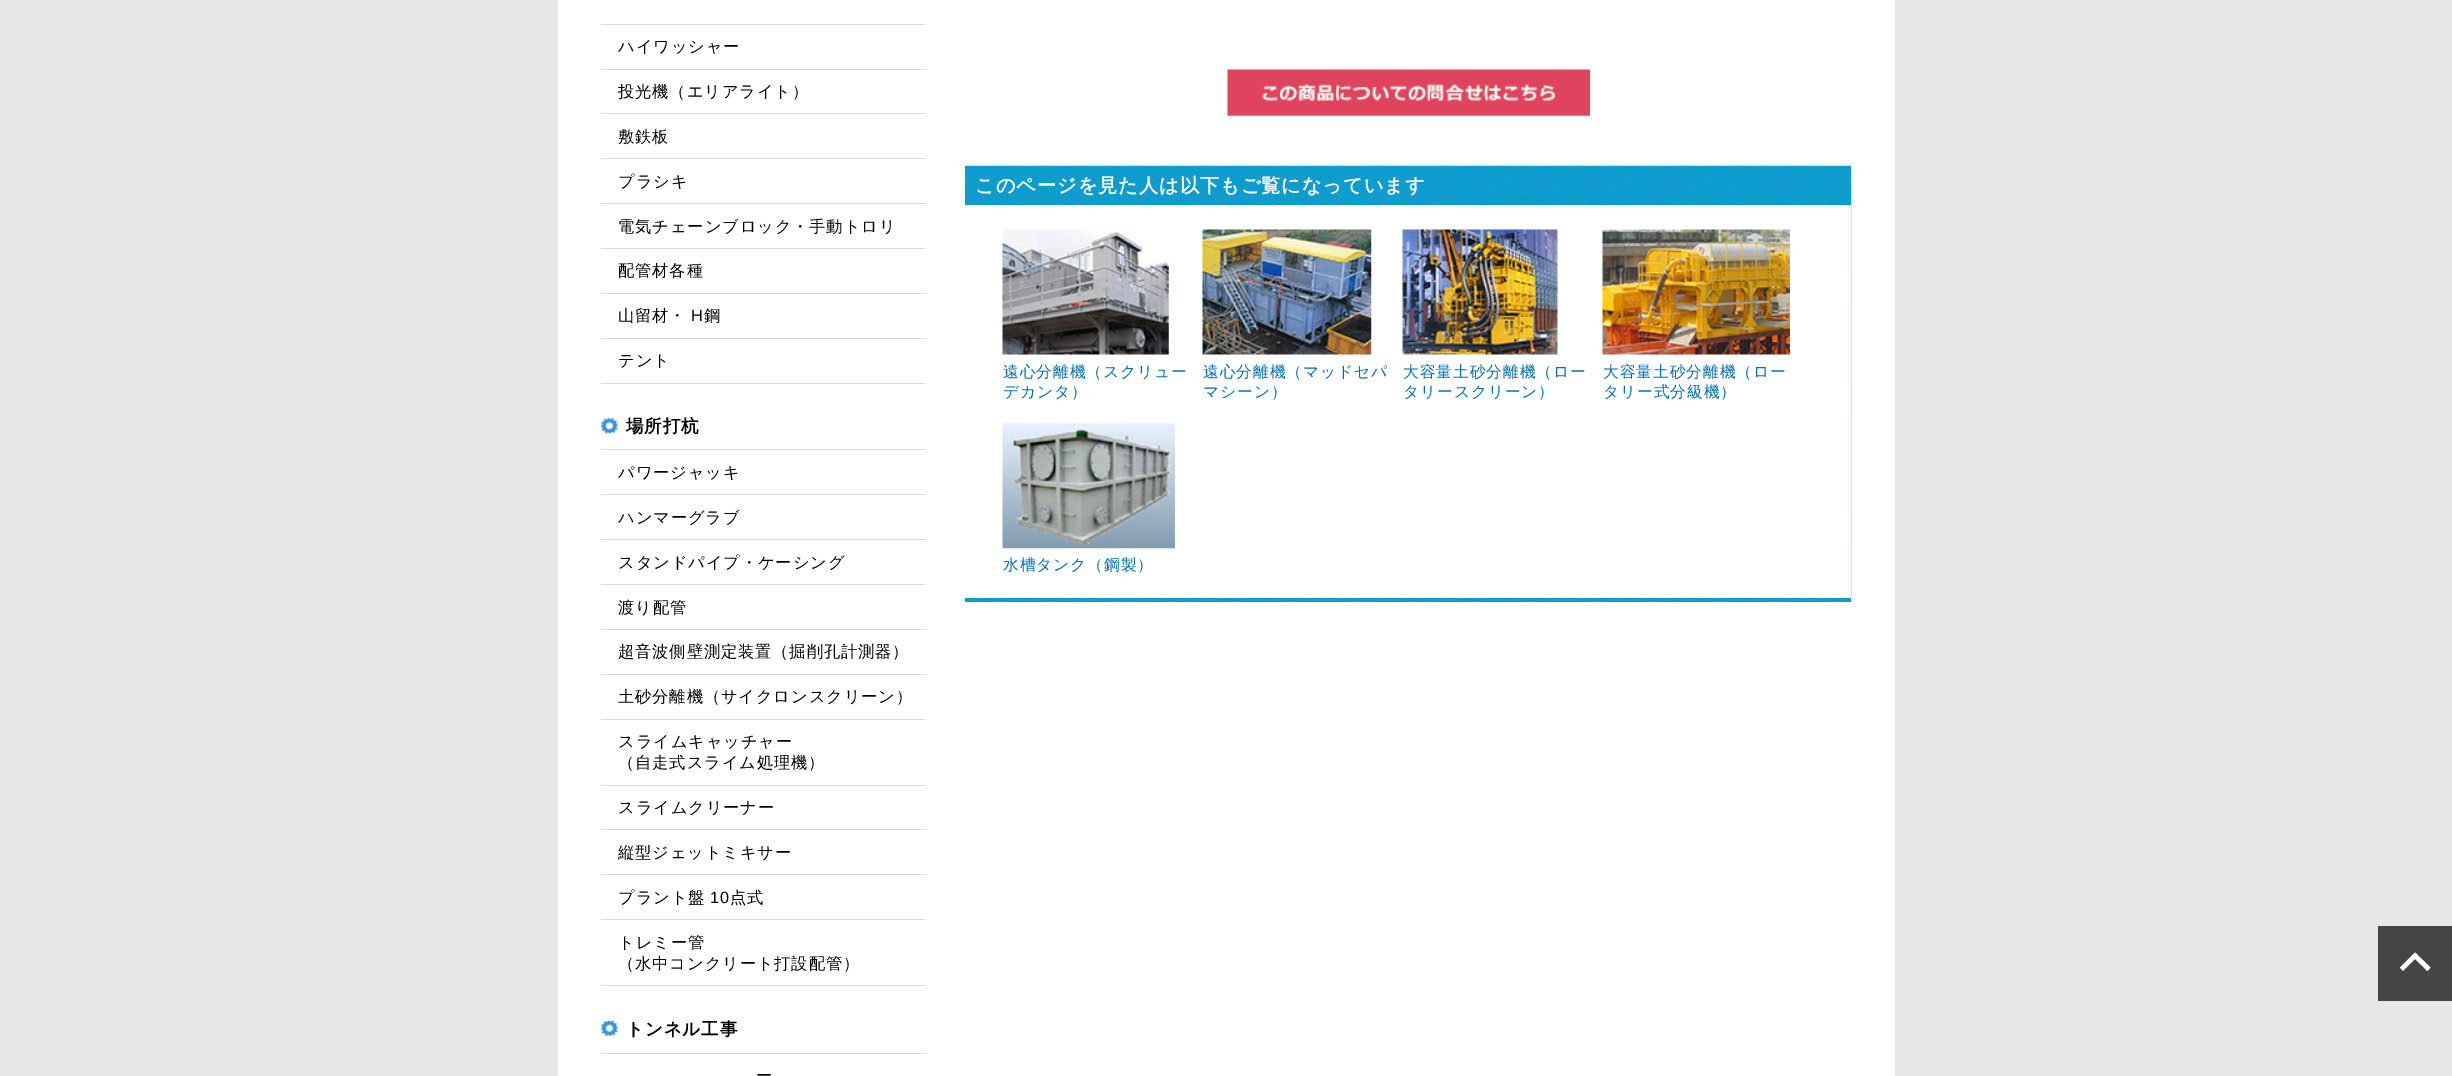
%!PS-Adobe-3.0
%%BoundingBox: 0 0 2452 1076
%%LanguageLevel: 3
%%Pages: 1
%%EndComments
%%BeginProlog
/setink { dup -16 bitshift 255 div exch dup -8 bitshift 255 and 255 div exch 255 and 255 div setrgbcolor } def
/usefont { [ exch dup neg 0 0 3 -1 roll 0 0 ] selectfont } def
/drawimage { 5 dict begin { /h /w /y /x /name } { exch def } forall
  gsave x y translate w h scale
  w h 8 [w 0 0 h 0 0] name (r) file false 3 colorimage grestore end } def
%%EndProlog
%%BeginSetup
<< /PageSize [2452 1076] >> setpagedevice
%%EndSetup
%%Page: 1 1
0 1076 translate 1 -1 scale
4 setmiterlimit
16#E7E7E7 setink
0 0 2452 1076 rectfill
[
    [558 0 1337 1076 16#FFFFFF]
    [601 24 325 1 16#DDDDDD]
    [601 69 325 1 16#DDDDDD]
] { aload pop setink rectfill } forall
/WenQuanYiZenHei-Medium 16.25 usefont
16#000000 setink
618 52 moveto 0.9 0 (ハイワッシャー) ashow
16#DDDDDD setink
601 113 325 1 rectfill
16#000000 setink
618 97 moveto 0.9 0 (投光機（エリアライト）) ashow
16#DDDDDD setink
601 158 325 1 rectfill
16#000000 setink
618 142 moveto 0.9 0 (敷鉄板) ashow
16#DDDDDD setink
601 203 325 1 rectfill
16#000000 setink
618 187 moveto 0.9 0 (プラシキ) ashow
16#DDDDDD setink
601 248 325 1 rectfill
16#000000 setink
618 232 moveto 0.9 0 (電気チェーンブロック・手動トロリ) ashow
16#DDDDDD setink
601 293 325 1 rectfill
16#000000 setink
618 276 moveto 0.9 0 (配管材各種) ashow
16#DDDDDD setink
601 338 325 1 rectfill
16#000000 setink
618 321 moveto 0.9 0 (山留材・) ashow
/LiberationSans-Regular 16.25 usefont
691 321 moveto 0.9 0 (H) ashow
/WenQuanYiZenHei-Medium 16.25 usefont
704 321 moveto 0.9 0 (鋼) ashow
16#DDDDDD setink
601 383 325 1 rectfill
16#000000 setink
618 366 moveto 0.9 0 (テント) ashow
(img1.raw) 601 417 18 17 drawimage
/WenQuanYiZenHei-Bold 17.5 usefont
626 432 moveto 0.9 0 (場所打杭) ashow
16#DDDDDD setink
601 449 325 1 rectfill
601 494 325 1 rectfill
/WenQuanYiZenHei-Medium 16.25 usefont
16#000000 setink
618 478 moveto 0.9 0 (パワージャッキ) ashow
16#DDDDDD setink
601 539 325 1 rectfill
16#000000 setink
618 523 moveto 0.9 0 (ハンマーグラブ) ashow
16#DDDDDD setink
601 584 325 1 rectfill
16#000000 setink
618 568 moveto 0.9 0 (スタンドパイプ・ケーシング) ashow
16#DDDDDD setink
601 629 325 1 rectfill
16#000000 setink
618 613 moveto 0.9 0 (渡り配管) ashow
16#DDDDDD setink
601 674 325 1 rectfill
16#000000 setink
618 657 moveto 0.9 0 (超音波側壁測定装置（掘削孔計測器）) ashow
16#DDDDDD setink
601 719 325 1 rectfill
16#000000 setink
618 702 moveto 0.9 0 (土砂分離機（サイクロンスクリーン）) ashow
16#DDDDDD setink
601 785 325 1 rectfill
16#000000 setink
618 747 moveto 0.9 0 (スライムキャッチャー) ashow
618 768 moveto 0.9 0 (（自走式スライム処理機）) ashow
16#DDDDDD setink
601 829 325 1 rectfill
16#000000 setink
618 813 moveto 0.9 0 (スライムクリーナー) ashow
16#DDDDDD setink
601 874 325 1 rectfill
16#000000 setink
618 858 moveto 0.9 0 (縦型ジェットミキサー) ashow
16#DDDDDD setink
601 919 325 1 rectfill
16#000000 setink
618 903 moveto 0.9 0 (プラント盤) ashow
/LiberationSans-Regular 16.25 usefont
710 903 moveto 0.9 0 (10) ashow
/WenQuanYiZenHei-Medium 16.25 usefont
730 903 moveto 0.9 0 (点式) ashow
16#DDDDDD setink
601 985 325 1 rectfill
16#000000 setink
618 948 moveto 0.9 0 (トレミー管) ashow
618 969 moveto 0.9 0 (（水中コンクリート打設配管）) ashow
(img2.raw) 601 1019 18 17 drawimage
/WenQuanYiZenHei-Bold 17.5 usefont
626 1035 moveto 0.9 0 (トンネル工事) ashow
16#DDDDDD setink
601 1053 325 1 rectfill
/WenQuanYiZenHei-Medium 16.25 usefont
16#000000 setink
756 1081 moveto 0.9 0 (ー) ashow
(img3.raw) 1227 69 363 47 drawimage
(img4.raw) 965 165 887 437 drawimage
/WenQuanYiZenHei-Bold 19.25 usefont
16#FFFFFF setink
975 192 moveto 0.9 0 (このページを見た人は以下もご覧になっています) ashow
965 205 886 393 rectfill
(img5.raw) 1002 229 167 126 drawimage
/WenQuanYiZenHei-Medium 15.75 usefont
16#006CB6 setink
1003 377 moveto 0.9 0 (遠心分離機（スクリュー) ashow
1003 397 moveto 0.9 0 (デカンタ）) ashow
(img6.raw) 1202 229 170 126 drawimage
1203 377 moveto 0.9 0 (遠心分離機（マッドセパ) ashow
1203 397 moveto 0.9 0 (マシーン）) ashow
(img7.raw) 1402 229 156 126 drawimage
1403 377 moveto 0.9 0 (大容量土砂分離機（ロー) ashow
1403 397 moveto 0.9 0 (タリースクリーン）) ashow
(img8.raw) 1602 229 188 126 drawimage
1603 377 moveto 0.9 0 (大容量土砂分離機（ロー) ashow
1603 397 moveto 0.9 0 (タリー式分級機）) ashow
(img9.raw) 1002 423 173 126 drawimage
1003 570 moveto 0.9 0 (水槽タンク（鋼製）) ashow
16#454545 setink
2378 926 74 75 rectfill
16#FFFFFF setink
2430.5 967.5 moveto 2427.5 971 lineto 2415 959 lineto 2403 971 lineto 2400 967.5 lineto 2415 952.5 lineto closepath fill
showpage
%%EOF
